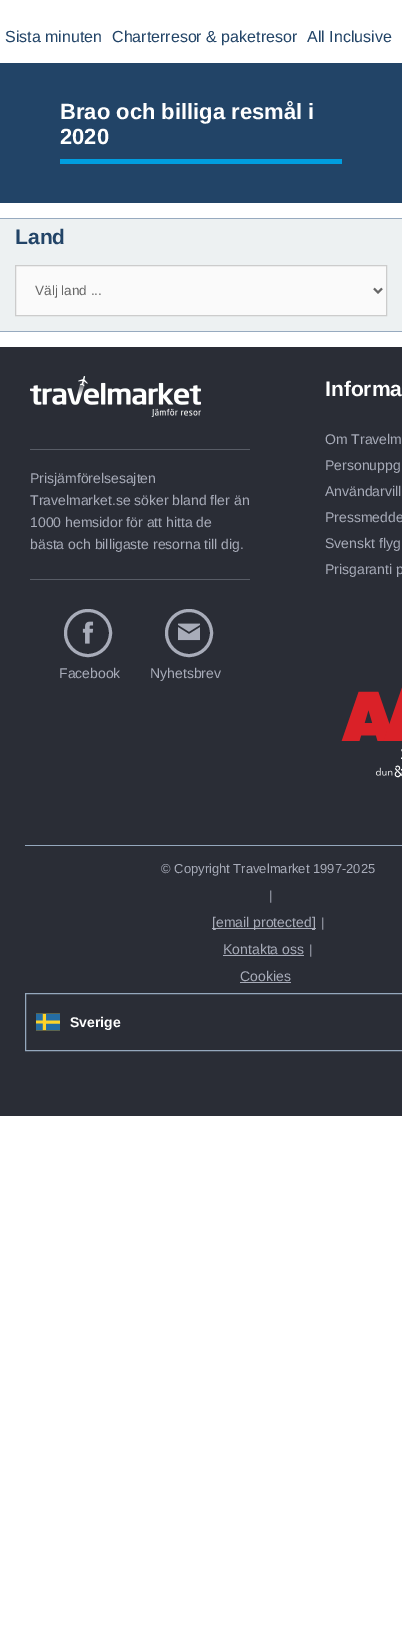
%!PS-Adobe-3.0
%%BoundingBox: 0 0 402 1650
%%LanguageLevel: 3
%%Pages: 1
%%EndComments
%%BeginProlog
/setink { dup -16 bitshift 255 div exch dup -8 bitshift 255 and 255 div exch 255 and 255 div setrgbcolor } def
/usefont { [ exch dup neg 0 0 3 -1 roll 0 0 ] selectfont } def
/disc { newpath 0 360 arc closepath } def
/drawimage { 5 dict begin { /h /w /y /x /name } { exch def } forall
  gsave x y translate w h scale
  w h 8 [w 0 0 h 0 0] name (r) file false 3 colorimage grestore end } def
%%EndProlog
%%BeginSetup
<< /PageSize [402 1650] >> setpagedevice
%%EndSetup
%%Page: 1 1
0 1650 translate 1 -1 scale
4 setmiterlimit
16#FFFFFF setink
0 0 402 1650 rectfill
/LiberationSans-Regular 16 usefont
16#224467 setink
[
    [(Sista minuten) 5 42]
    [(Charterresor & paketresor) 112 42]
    [(All Inclusive) 307 42]
] { aload pop moveto show } forall
0 63 402 140 rectfill
16#009EE0 setink
60 159 282 5 rectfill
/LiberationSans-Bold 22 usefont
16#FFFFFF setink
60 119 moveto (Brao och billiga resmål i) show
60 144 moveto (2020) show
[
    [0 219 402 112 16#EDF1F2]
    [0 218 402 1 16#97AABF]
    [0 331 402 1 16#97AABF]
] { aload pop setink rectfill } forall
/LiberationSans-Bold 21 usefont
16#224467 setink
15 244 moveto (Land) show
16#FAFAFA setink
15.5 265.5 moveto 386.5 265.5 lineto 386.5 315.5 lineto 15.5 315.5 lineto closepath gsave fill grestore
16#CCCCCC setink
stroke
16#666666 setink
2 setlinewidth
374 288.5 moveto 378 292.5 lineto 382 288.5 lineto stroke
/LiberationSans-Regular 13.5 usefont
35 295 moveto (Välj land ...) show
16#2A2D36 setink
0 347 402 769 rectfill
(img1.raw) 30 376 171 41 drawimage
16#585C66 setink
30 449 220 1 rectfill
30 579 220 1 rectfill
/LiberationSans-Regular 14 usefont
16#A8ACB9 setink
[
    [(Prisjämförelsesajten) 30 483]
    [(Travelmarket.se söker bland fler än) 30 505]
    [(1000 hemsidor för att hitta de) 30 527]
    [(bästa och billigaste resorna till dig.) 30 549]
] { aload pop moveto show } forall
(img2.raw) 82 621 12 23 drawimage
3 setlinewidth
88 633 22.5 disc stroke
59 678 moveto (Facebook) show
(img3.raw) 178 623 22 18 drawimage
189 633 22.5 disc stroke
150 678 moveto (Nyhetsbrev) show
/LiberationSans-Bold 21 usefont
16#FFFFFF setink
325 396 moveto (Informa) show
/LiberationSans-Regular 14 usefont
16#A8ACB9 setink
[
    [(Om Travelm) 325 444]
    [(Personuppg) 325 470]
    [(Användarvill) 325 496]
    [(Pressmedde) 325 522]
    [(Svenskt flyg) 325 548]
    [(Prisgaranti p) 325 574]
] { aload pop moveto show } forall
(img4.raw) 341 687 61 91 drawimage
16#95A8BD setink
25 845 377 1 rectfill
/LiberationSans-Regular 13 usefont
16#A8ACB9 setink
161 873 moveto (© Copyright Travelmarket 1997-2025) show
269 900 moveto (|) show
212 928 104 1 rectfill
/LiberationSans-Regular 14 usefont
212 927 moveto ([email protected]) show
/LiberationSans-Regular 13 usefont
321 927 moveto (|) show
/LiberationSans-Regular 14 usefont
223 954 moveto (Kontakta oss) show
223 955 81 1 rectfill
/LiberationSans-Regular 13 usefont
309 954 moveto (|) show
/LiberationSans-Regular 14 usefont
240 981 moveto (Cookies) show
240 982 51 1 rectfill
16#95A8BD setink
1 setlinewidth
25.5 993.5 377 57 rectstroke
(img5.raw) 36 1013 24 18 drawimage
/LiberationSans-Bold 14 usefont
16#FFFFFF setink
70 1027 moveto (Sverige) show
showpage
%%EOF
